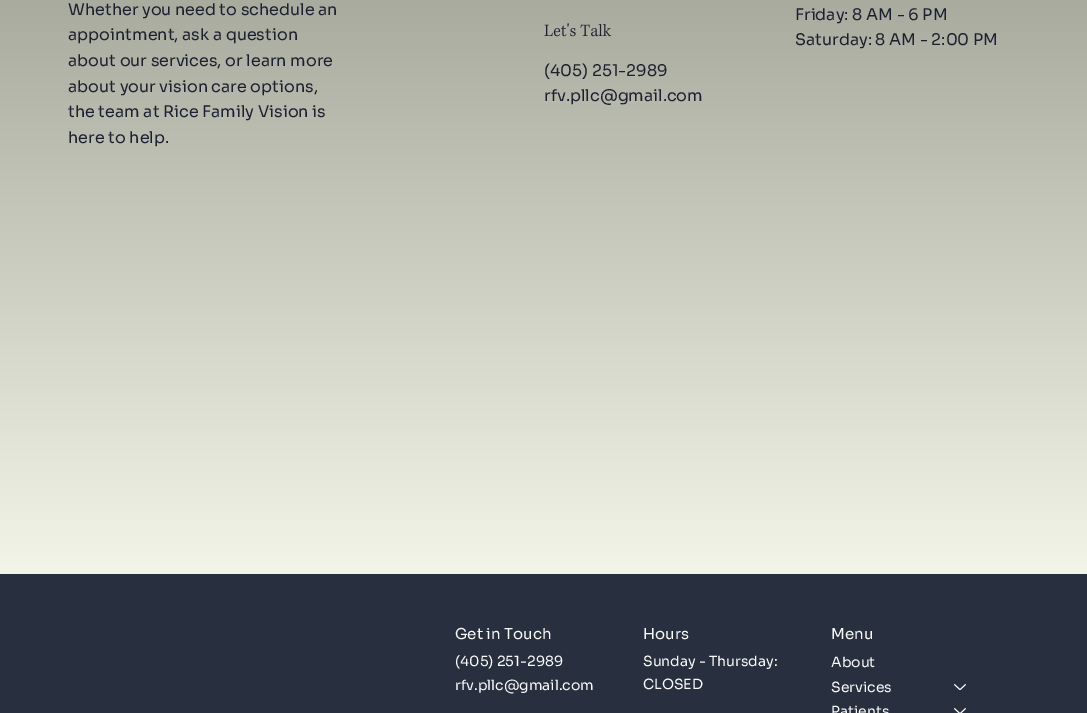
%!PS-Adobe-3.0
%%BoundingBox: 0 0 1087 713
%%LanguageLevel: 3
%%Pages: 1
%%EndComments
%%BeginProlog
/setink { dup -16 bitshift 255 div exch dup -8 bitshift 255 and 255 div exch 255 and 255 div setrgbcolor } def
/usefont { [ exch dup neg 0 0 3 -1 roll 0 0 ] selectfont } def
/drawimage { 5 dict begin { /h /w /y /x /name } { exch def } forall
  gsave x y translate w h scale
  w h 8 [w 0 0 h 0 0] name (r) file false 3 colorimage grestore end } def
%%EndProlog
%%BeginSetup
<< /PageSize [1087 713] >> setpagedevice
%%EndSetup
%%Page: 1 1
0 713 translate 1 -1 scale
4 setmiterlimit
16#FFFFFF setink
0 0 1087 713 rectfill
gsave 0 0 moveto 1087 0 lineto 1087 574 lineto 0 574 lineto closepath clip newpath
<< /ShadingType 2 /ColorSpace /DeviceRGB /Coords [544 -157 544 574] /Extend [true true] /Function << /FunctionType 2 /Domain [0 1] /C0 [0.584 0.592 0.541] /C1 [0.953 0.961 0.91] /N 1 >> >> shfill grestore
/Sora-Regular 16 usefont
16#1C1F30 setink
[
    [(Whether you need to schedule an) 68 15]
    [(appointment, ask a question) 68 40]
    [(about our services, or learn more) 68 66]
    [(about your vision care options,) 68 92]
    [(the team at Rice Family Vision is) 68 117]
    [(here to help.) 68 143]
    [(Friday: 8 AM - 6 PM) 795 20]
    [(Saturday: 8 AM - 2:00 PM) 795 45]
] { aload pop moveto show } forall
(img1.raw) 544 23 68 14 drawimage
544 76 moveto (\(405\) 251-2989) show
544 101 moveto (rfv.pllc@gmail.com) show
16#283040 setink
0 574 1087 139 rectfill
/Sora-Regular 15 usefont
16#FAFAFA setink
455 639 moveto (Get in Touch) show
/Sora-Regular 14 usefont
455 666 moveto (\(405\) 251-2989) show
455 690 moveto (rfv.pllc@gmail.com) show
/Sora-Regular 15 usefont
643 639 moveto (Hours) show
/Sora-Regular 14 usefont
643 666 moveto (Sunday - Thursday:) show
643 689 moveto (CLOSED) show
/Sora-Regular 15 usefont
831 639 moveto (Menu) show
/Sora-Regular 14 usefont
831 667 moveto (About) show
831 692 moveto (Services) show
(img2.raw) 954 684 12 6 drawimage
831 716 moveto (Patients) show
(img3.raw) 954 708 12 5 drawimage
showpage
%%EOF
